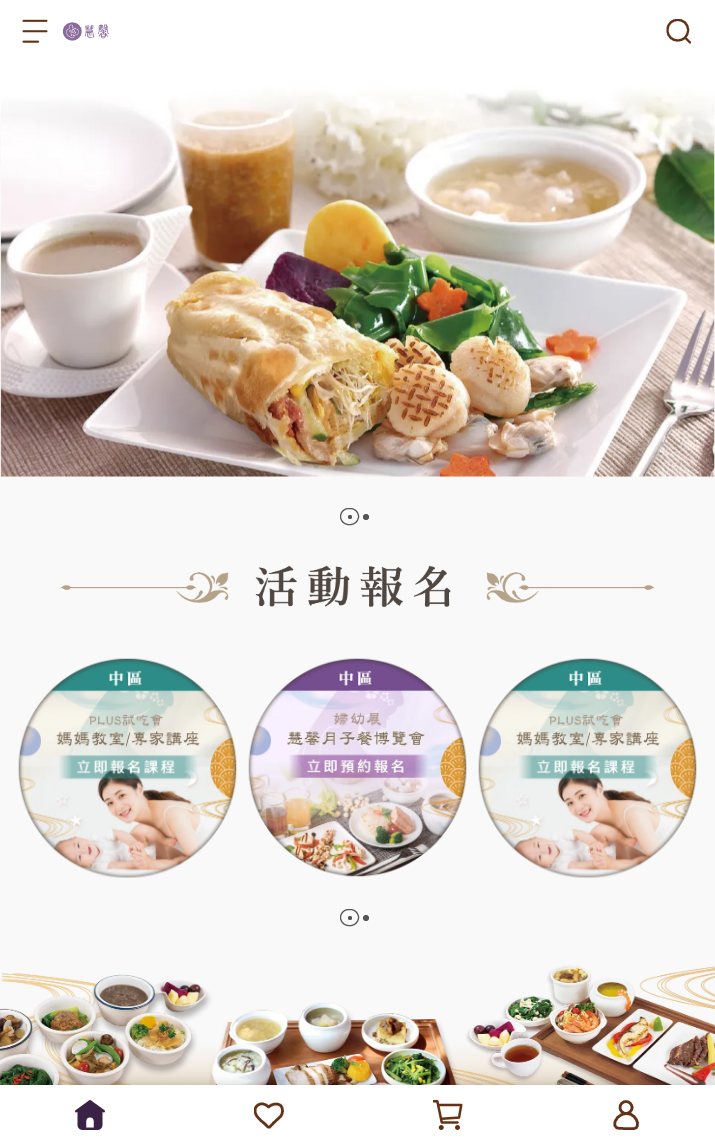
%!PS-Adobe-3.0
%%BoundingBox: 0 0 715 1145
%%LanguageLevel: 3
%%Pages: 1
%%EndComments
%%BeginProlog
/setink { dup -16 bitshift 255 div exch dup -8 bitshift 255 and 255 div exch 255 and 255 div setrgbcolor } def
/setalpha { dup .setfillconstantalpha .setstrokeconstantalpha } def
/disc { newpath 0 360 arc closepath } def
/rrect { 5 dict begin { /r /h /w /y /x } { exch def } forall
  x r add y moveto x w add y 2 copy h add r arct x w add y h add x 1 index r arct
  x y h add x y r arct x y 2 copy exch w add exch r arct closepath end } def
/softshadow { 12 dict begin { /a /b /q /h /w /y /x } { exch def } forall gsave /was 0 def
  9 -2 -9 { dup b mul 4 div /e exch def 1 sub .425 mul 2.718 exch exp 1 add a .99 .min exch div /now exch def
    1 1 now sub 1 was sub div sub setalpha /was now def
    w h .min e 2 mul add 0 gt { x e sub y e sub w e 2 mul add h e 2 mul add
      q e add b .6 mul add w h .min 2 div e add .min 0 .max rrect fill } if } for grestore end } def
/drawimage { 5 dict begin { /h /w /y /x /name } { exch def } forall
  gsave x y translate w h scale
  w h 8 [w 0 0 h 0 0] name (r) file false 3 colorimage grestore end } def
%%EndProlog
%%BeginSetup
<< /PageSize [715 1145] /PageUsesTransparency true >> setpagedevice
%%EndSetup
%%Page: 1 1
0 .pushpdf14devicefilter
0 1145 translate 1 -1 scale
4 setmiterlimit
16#FFFFFF setink
0 0 715 1145 rectfill
(img1.raw) 22 19 26 24 drawimage
(img2.raw) 62 22 47 19 drawimage
gsave
663 19 32 25 rectclip
16#643114 setink
2.1 setlinewidth
1 setlinecap
1 setlinejoin
688 30 moveto 688 44 667.5 44 667.5 30 curveto 667.5 16.5 688 16.5 688 30 curveto closepath stroke
grestore
16#643114 setink
2.1 setlinewidth
1 setlinecap
1 setlinejoin
686 38.5 moveto 690 42.5 lineto stroke
16#F9F9F9 setink
0 87 715 998 rectfill
(img10.raw) 0 965 715 120 drawimage
16#000000 setink
0 1085 715 60 0 6 0.2 softshadow
16#FFFFFF setink
0 1085 715 60 rectfill
(img3.raw) 75 1100 30 30 drawimage
gsave
254 1100 30 30 rectclip
16#643114 setink
2.5 setlinewidth
280.5 1105.5 moveto 277 1102.5 272 1104 268.5 1107 curveto 261.5 1099.5 251 1106.5 256.5 1115.5 curveto 258.5 1119 262 1121.5 265 1124 curveto 270 1129 268 1128.5 274 1122.5 curveto 280.5 1116.5 lineto 283 1113.5 283.5 1108.5 280.5 1105.5 curveto closepath stroke
grestore
(img4.raw) 433 1100 30 30 drawimage
16#643114 setink
2.5 setlinewidth
0 setlinecap
0 setlinejoin
626 1107.5 6 disc stroke
633.5 1128.5 moveto 624 1128.5 lineto 618.5 1128.5 613.5 1129 615 1122 curveto 616 1118.5 618.5 1116 622 1114.5 curveto 636 1109 642.5 1129 633.5 1128.5 curveto closepath stroke
(img5.raw) 0 63 715 414 drawimage
16#565656 setink
350 517 2 disc fill
1 setlinewidth
340.5 508.5 18 16 8 rrect stroke
366 517 3 disc fill
(img6.raw) 60 565 595 43 drawimage
(img7.raw) 18 658 219 220 drawimage
(img8.raw) 248 658 219 219 drawimage
(img9.raw) 478 658 219 220 drawimage
350 918 2 disc fill
340.5 909.5 18 16 8 rrect stroke
366 918 3 disc fill
.poppdf14devicefilter showpage
%%EOF
